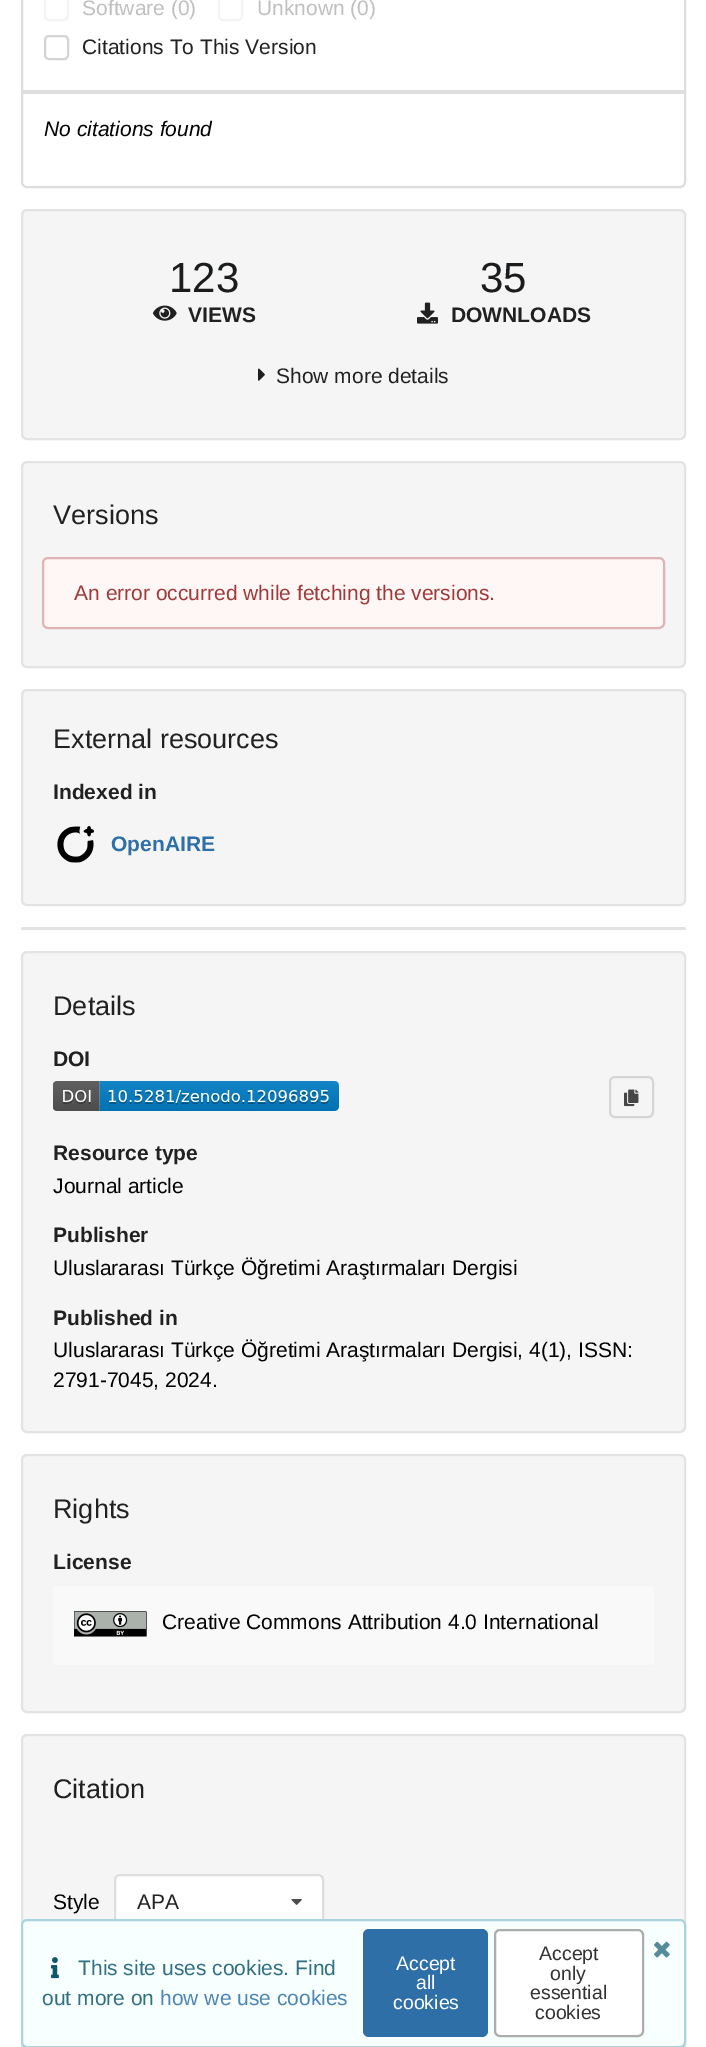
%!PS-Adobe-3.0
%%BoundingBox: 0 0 706 2047
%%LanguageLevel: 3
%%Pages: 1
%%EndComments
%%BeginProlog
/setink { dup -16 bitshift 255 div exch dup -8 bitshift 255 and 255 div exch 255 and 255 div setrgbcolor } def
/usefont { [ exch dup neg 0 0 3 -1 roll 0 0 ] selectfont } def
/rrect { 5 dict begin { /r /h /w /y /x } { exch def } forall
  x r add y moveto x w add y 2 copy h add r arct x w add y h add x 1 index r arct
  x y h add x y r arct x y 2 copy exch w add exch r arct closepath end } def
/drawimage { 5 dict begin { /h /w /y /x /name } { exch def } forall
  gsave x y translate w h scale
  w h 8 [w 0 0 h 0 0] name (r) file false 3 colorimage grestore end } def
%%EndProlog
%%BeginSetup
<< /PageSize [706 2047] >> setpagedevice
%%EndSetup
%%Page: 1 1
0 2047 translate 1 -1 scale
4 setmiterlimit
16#FFFFFF setink
0 0 706 2047 rectfill
16#DEDEDE setink
2 setlinewidth
22 -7 663 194 5 rrect stroke
16#F4F4F5 setink
45 -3 23 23 4 rrect stroke
/LiberationSans-Regular 21 usefont
16#BFBFBF setink
82 15 moveto (Software \(0\)) show
16#F4F4F5 setink
219 -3 23 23 4 rrect stroke
16#BFBFBF setink
257 15 moveto (Unknown \(0\)) show
16#D4D4D5 setink
45 36 23 23 4 rrect stroke
16#212121 setink
82 54 moveto (Citations To This Version) show
16#DEDEDE setink
23 90 661 4 rectfill
/LiberationSans-Italic 21 usefont
16#000000 setink
44 136 moveto (No citations found) show
16#F5F5F5 setink
22 210 663 229 5 rrect gsave fill grestore
16#E3E3E3 setink
stroke
/LiberationSans-Regular 42 usefont
16#1B1C1D setink
169 292 moveto (123) show
(img1.raw) 153 305 24 16 drawimage
/LiberationSans-Bold 21 usefont
16#212121 setink
188 322 moveto (VIEWS) show
/LiberationSans-Regular 42 usefont
16#1B1C1D setink
480 292 moveto (35) show
(img2.raw) 417 302 21 22 drawimage
/LiberationSans-Bold 21 usefont
16#212121 setink
451 322 moveto (DOWNLOADS) show
(img3.raw) 258 368 7 13 drawimage
/LiberationSans-Regular 21 usefont
276 383 moveto (Show more details) show
16#F5F5F5 setink
22 462 663 205 5 rrect gsave fill grestore
16#E3E3E3 setink
stroke
/LiberationSans-Regular 27 usefont
16#212121 setink
53 524 moveto (Versions) show
16#FFF6F6 setink
43 558 621 70 5 rrect gsave fill grestore
16#E0B4B4 setink
stroke
/LiberationSans-Regular 21 usefont
16#9F3A38 setink
74 600 moveto (An error occurred while fetching the versions.) show
16#F5F5F5 setink
22 690 663 215 5 rrect gsave fill grestore
16#E3E3E3 setink
stroke
/LiberationSans-Regular 27 usefont
16#212121 setink
53 748 moveto (External resources) show
/LiberationSans-Bold 21 usefont
53 799 moveto (Indexed in) show
(img4.raw) 57 826 37 37 drawimage
16#2F6FA7 setink
111 851 moveto (OpenAIRE) show
16#E3E3E3 setink
21 927 665 3 1.5 rrect fill
16#F5F5F5 setink
22 952 663 480 5 rrect gsave fill grestore
16#E3E3E3 setink
stroke
/LiberationSans-Regular 27 usefont
16#212121 setink
53 1015 moveto (Details) show
/LiberationSans-Bold 21 usefont
53 1066 moveto (DOI) show
(img5.raw) 53 1081 286 30 drawimage
16#D5D6D6 setink
610 1077 43 40 5 rrect stroke
(img6.raw) 624 1089 15 18 drawimage
16#212121 setink
53 1160 moveto (Resource type) show
/LiberationSans-Regular 21 usefont
16#000000 setink
53 1193 moveto (Journal article) show
/LiberationSans-Bold 21 usefont
16#212121 setink
53 1242 moveto (Publisher) show
/LiberationSans-Regular 21 usefont
16#000000 setink
53 1275 moveto (Uluslararası Türkçe Öğretimi Araştırmaları Dergisi) show
/LiberationSans-Bold 21 usefont
16#212121 setink
53 1325 moveto (Published in) show
/LiberationSans-Regular 21 usefont
16#000000 setink
53 1357 moveto (Uluslararası Türkçe Öğretimi Araştırmaları Dergisi, 4\(1\), ISSN:) show
53 1387 moveto (2791-7045, 2024.) show
16#F5F5F5 setink
22 1455 663 257 5 rrect gsave fill grestore
16#E3E3E3 setink
stroke
/LiberationSans-Regular 27 usefont
16#212121 setink
53 1518 moveto (Rights) show
/LiberationSans-Bold 21 usefont
53 1569 moveto (License) show
16#F9F9F9 setink
53 1586 601 79 rectfill
(img7.raw) 74 1611 73 26 drawimage
/LiberationSans-Regular 21 usefont
16#000000 setink
162 1629 moveto (Creative Commons Attribution 4.0 International) show
16#F5F5F5 setink
22 1735 663 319 5 rrect gsave fill grestore
16#E3E3E3 setink
stroke
/LiberationSans-Regular 27 usefont
16#212121 setink
53 1798 moveto (Citation) show
/LiberationSans-Regular 21 usefont
16#000000 setink
53 1909 moveto (Style) show
16#FFFFFF setink
115 1875 208 55 5 rrect gsave fill grestore
16#DEDEDE setink
stroke
16#212121 setink
137 1909 moveto (APA) show
(img8.raw) 291 1899 11 6 drawimage
16#F8FFFF setink
22 1920 663 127 5 rrect gsave fill grestore
16#A9D5DE setink
stroke
(img9.raw) 51 1957 8 22 drawimage
16#317082 setink
78 1975 moveto (This site uses cookies. Find) show
42 2005 moveto (out more on) show
16#4D85B4 setink
160 2005 moveto (how we use cookies) show
16#2F6FA7 setink
363 1929 125 108 6 rrect fill
/LiberationSans-Regular 19.5 usefont
16#FFFFFF setink
[
    [(Accept) 396 1970]
    [(all) 416 1989]
    [(cookies) 393 2009]
] { aload pop moveto show } forall
495 1930 148 106 5 rrect gsave fill grestore
16#ADADAD setink
stroke
16#333333 setink
[
    [(Accept) 539 1960]
    [(only) 550 1980]
    [(essential) 530 1999]
    [(cookies) 535 2019]
] { aload pop moveto show } forall
(img10.raw) 654 1941 16 17 drawimage
showpage
%%EOF
